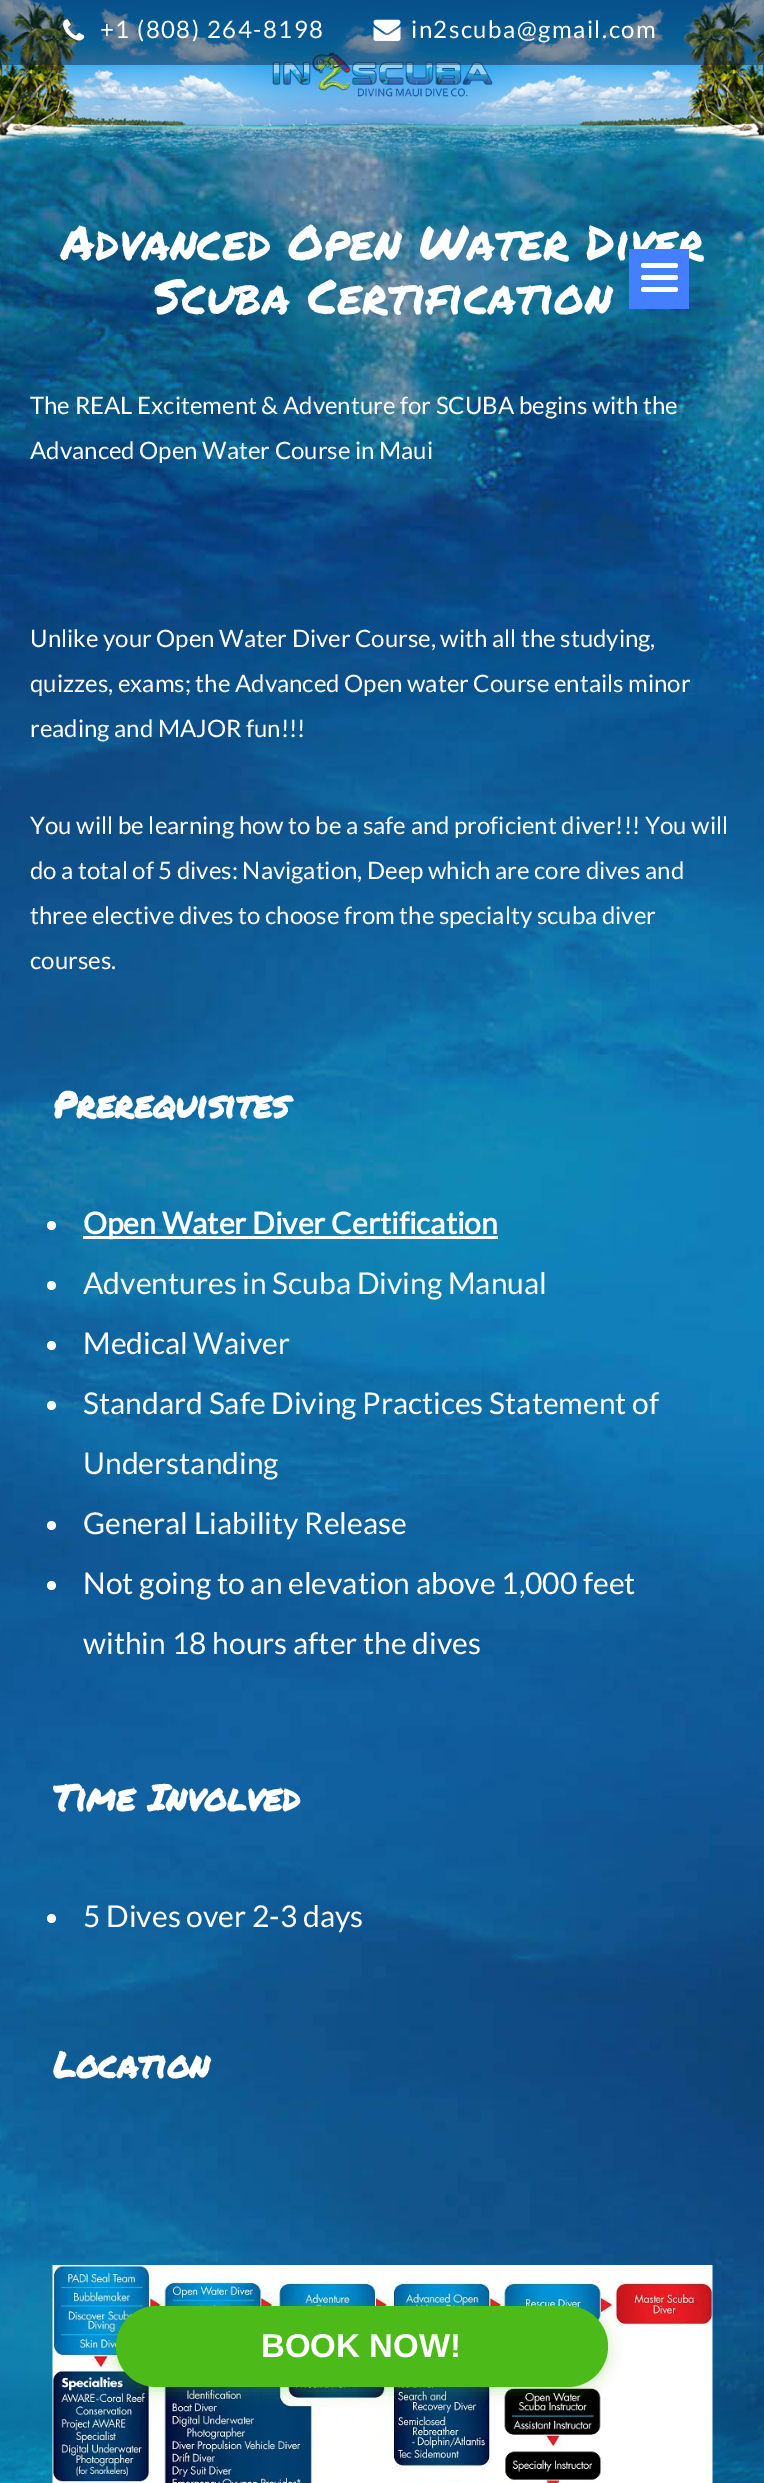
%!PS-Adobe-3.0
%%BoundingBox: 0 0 764 2483
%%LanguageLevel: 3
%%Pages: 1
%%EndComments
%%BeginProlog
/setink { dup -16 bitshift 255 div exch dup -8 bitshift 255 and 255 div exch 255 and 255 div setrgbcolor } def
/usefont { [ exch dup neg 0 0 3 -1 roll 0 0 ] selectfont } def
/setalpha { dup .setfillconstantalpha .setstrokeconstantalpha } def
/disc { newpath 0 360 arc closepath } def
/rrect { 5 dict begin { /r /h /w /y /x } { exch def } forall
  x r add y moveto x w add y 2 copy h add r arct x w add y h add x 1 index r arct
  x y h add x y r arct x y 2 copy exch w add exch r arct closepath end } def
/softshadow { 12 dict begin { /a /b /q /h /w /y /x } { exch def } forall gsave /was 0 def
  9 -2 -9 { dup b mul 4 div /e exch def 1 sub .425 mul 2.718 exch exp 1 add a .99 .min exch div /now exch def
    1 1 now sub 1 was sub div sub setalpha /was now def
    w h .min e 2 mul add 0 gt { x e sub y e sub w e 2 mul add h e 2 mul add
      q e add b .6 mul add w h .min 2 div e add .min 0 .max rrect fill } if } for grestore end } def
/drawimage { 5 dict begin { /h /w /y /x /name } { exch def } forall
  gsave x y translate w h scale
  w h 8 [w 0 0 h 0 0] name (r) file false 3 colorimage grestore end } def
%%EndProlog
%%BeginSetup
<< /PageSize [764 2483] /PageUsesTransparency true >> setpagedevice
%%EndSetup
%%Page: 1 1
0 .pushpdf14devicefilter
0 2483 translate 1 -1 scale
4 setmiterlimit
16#FFFFFF setink
0 0 764 2483 rectfill
(img5.raw) 0 94 764 2389 drawimage
(img1.raw) 0 0 764 168 drawimage
(img4.raw) 272 46 221 51 drawimage
0.5 setalpha
16#0D253D setink
0 0 764 65 rectfill
1 setalpha
(img2.raw) 63 19 22 22 drawimage
/Lato-Regular 24 usefont
16#FFFFFF setink
100 38 moveto 1.5 0 (+1 \(808\) 264-8198) ashow
(img3.raw) 373 19 28 22 drawimage
411 38 moveto 1.5 0 (in2scuba@gmail.com) ashow
/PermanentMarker-Regular 48 usefont
61 260 moveto (Advanced Open Water Diver) show
154 314 moveto (Scuba Certification) show
/Lato-Regular 24 usefont
[
    [(The REAL Excitement & Adventure for SCUBA begins with the) 30 414]
    [(Advanced Open Water Course in Maui) 30 459]
    [(Unlike your Open Water Diver Course, with all the studying,) 30 647]
    [(quizzes, exams; the Advanced Open water Course entails minor) 30 692]
    [(reading and MAJOR fun!!!) 30 737]
    [(You will be learning how to be a safe and proficient diver!!! You will) 30 834]
    [(do a total of 5 dives: Navigation, Deep which are core dives and) 30 879]
    [(three elective dives to choose from the specialty scuba diver) 30 924]
    [(courses.) 30 969]
] { aload pop moveto show } forall
/PermanentMarker-Bold 36 usefont
53 1118 moveto (Prerequisites) show
51.5 1225.5 4.5 disc fill
83 1236 415 3 rectfill
/Lato-Bold 30 usefont
83 1234 moveto (Open Water Diver Certification) show
51.5 1285.5 4.5 disc fill
/Lato-Regular 30 usefont
83 1294 moveto (Adventures in Scuba Diving Manual) show
51.5 1345.5 4.5 disc fill
83 1354 moveto (Medical Waiver) show
51.5 1405.5 4.5 disc fill
83 1414 moveto (Standard Safe Diving Practices Statement of) show
83 1474 moveto (Understanding) show
51.5 1525.5 4.5 disc fill
83 1534 moveto (General Liability Release) show
51.5 1585.5 4.5 disc fill
83 1594 moveto (Not going to an elevation above 1,000 feet) show
83 1654 moveto (within 18 hours after the dives) show
/PermanentMarker-Bold 36 usefont
53 1811 moveto (Time Involved) show
51.5 1918.5 4.5 disc fill
/Lato-Regular 30 usefont
83 1927 moveto (5 Dives over 2-3 days) show
/PermanentMarker-Bold 36 usefont
53 2078 moveto (Location) show
(img6.raw) 52 2265 661 218 drawimage
16#447FFF setink
629 249 60 60 rectfill
16#FFFFFF setink
641 263 37 5 2.5 rrect fill
641 275 37 5 2.5 rrect fill
641 287 37 5 2.5 rrect fill
16#4CBA19 setink
116 2309 492 81 40.5 7.5 0.3 softshadow
116 2306 492 81 40.5 rrect fill
/LiberationSans-Bold 33 usefont
16#FFFFFF setink
261 2357 moveto (BOOK NOW!) show
.poppdf14devicefilter showpage
%%EOF
